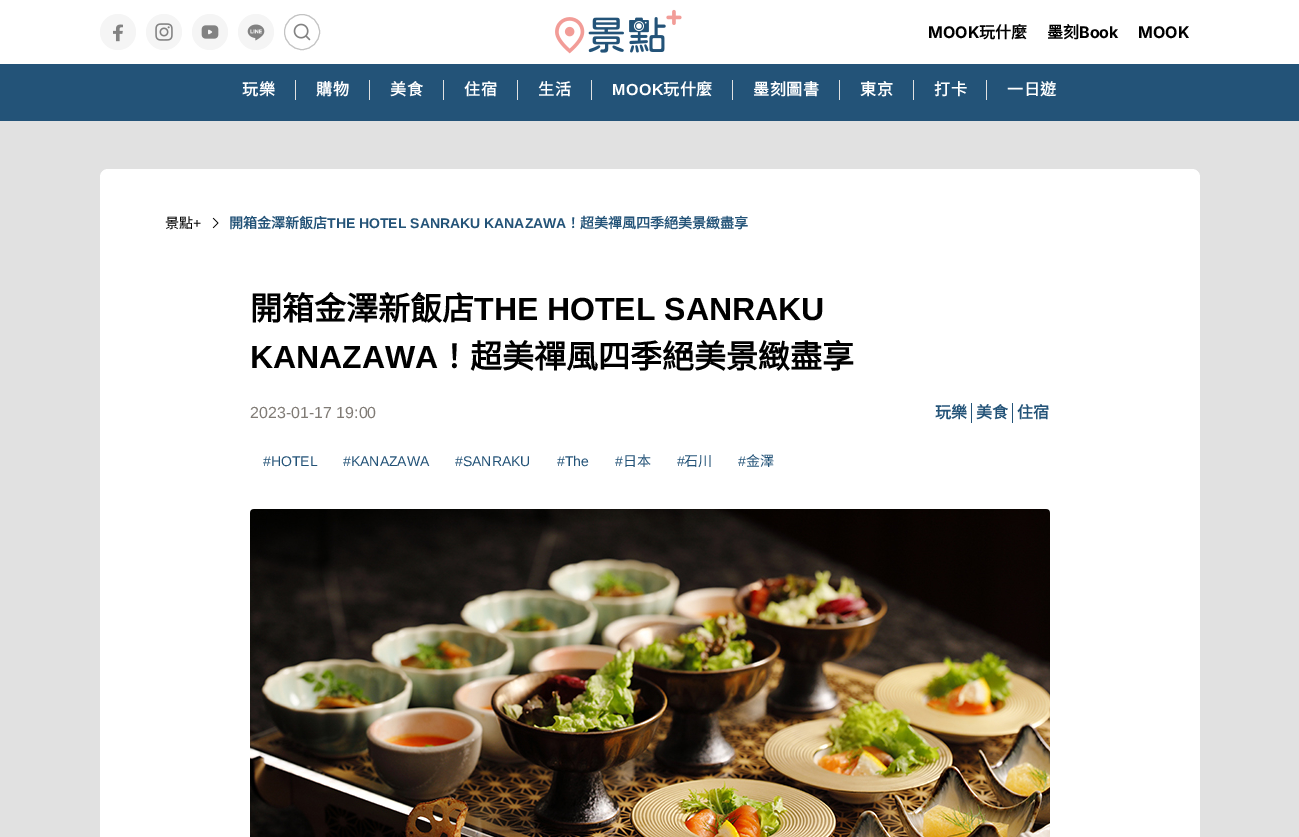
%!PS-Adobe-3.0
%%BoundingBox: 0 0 1299 837
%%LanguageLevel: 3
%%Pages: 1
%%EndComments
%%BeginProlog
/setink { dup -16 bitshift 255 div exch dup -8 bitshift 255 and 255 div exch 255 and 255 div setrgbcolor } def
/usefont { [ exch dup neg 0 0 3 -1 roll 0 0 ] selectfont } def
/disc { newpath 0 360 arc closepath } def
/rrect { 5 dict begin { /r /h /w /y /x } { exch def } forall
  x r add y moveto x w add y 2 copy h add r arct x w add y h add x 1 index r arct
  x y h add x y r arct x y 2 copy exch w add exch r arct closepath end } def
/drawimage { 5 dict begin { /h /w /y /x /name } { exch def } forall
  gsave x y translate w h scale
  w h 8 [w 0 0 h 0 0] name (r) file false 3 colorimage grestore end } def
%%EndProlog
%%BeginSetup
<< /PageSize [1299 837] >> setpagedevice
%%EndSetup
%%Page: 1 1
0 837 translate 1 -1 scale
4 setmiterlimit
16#E1E1E1 setink
0 0 1299 837 rectfill
16#FFFFFF setink
0 0 1299 64 rectfill
16#F5F5F5 setink
118 32 18 disc fill
(img1.raw) 113 24 10 18 drawimage
164 32 18 disc fill
(img2.raw) 155 23 18 18 drawimage
210 32 18 disc fill
(img3.raw) 201 25 18 14 drawimage
256 32 18 disc fill
(img4.raw) 247 24 18 17 drawimage
16#C3C3C3 setink
302 32 17.5 disc stroke
(img5.raw) 293 23 18 18 drawimage
(img6.raw) 555 9 127 45 drawimage
/Inter-Bold 16 usefont
16#000000 setink
928 38 moveto (MOOK) show
/NotoSansCJKTC-Bold 16 usefont
979 38 moveto (玩什麼) show
1047 38 moveto (墨刻) show
/Inter-Bold 16 usefont
1079 38 moveto (Book) show
1138 38 moveto (MOOK) show
16#235378 setink
0 64 1299 57 rectfill
/NotoSansCJKTC-Bold 16 usefont
16#FFFFFF setink
242 95 moveto 0.5 0 (玩樂) ashow
16#E1E1E1 setink
295 80 1 20 rectfill
16#FFFFFF setink
316 95 moveto 0.5 0 (購物) ashow
16#E1E1E1 setink
369 80 1 20 rectfill
16#FFFFFF setink
390 95 moveto 0.5 0 (美食) ashow
16#E1E1E1 setink
443 80 1 20 rectfill
16#FFFFFF setink
464 95 moveto 0.5 0 (住宿) ashow
16#E1E1E1 setink
517 80 1 20 rectfill
16#FFFFFF setink
538 95 moveto 0.5 0 (生活) ashow
16#E1E1E1 setink
591 80 1 20 rectfill
/LiberationSans-Bold 16 usefont
16#FFFFFF setink
612 95 moveto 0.5 0 (MOOK) ashow
/NotoSansCJKTC-Bold 16 usefont
663 95 moveto 0.5 0 (玩什麼) ashow
16#E1E1E1 setink
732 80 1 20 rectfill
16#FFFFFF setink
753 95 moveto 0.5 0 (墨刻圖書) ashow
16#E1E1E1 setink
839 80 1 20 rectfill
16#FFFFFF setink
860 95 moveto 0.5 0 (東京) ashow
16#E1E1E1 setink
913 80 1 20 rectfill
16#FFFFFF setink
934 95 moveto 0.5 0 (打卡) ashow
16#E1E1E1 setink
986 80 1 20 rectfill
16#FFFFFF setink
1007 95 moveto 0.5 0 (一日遊) ashow
100 169 1100 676 8 rrect fill
/NotoSansCJKTC-Regular 14 usefont
16#000000 setink
165 228 moveto (景點) show
/LiberationSans-Regular 14 usefont
193 228 moveto (+) show
(img7.raw) 212 217 7 12 drawimage
/NotoSansCJKTC-Bold 14 usefont
16#235378 setink
229 228 moveto (開箱金澤新飯店) show
/LiberationSans-Bold 14 usefont
327 228 moveto (THE HOTEL SANRAKU KANAZAWA) show
/NotoSansCJKTC-Bold 14 usefont
566 228 moveto (！超美禪風四季絕美景緻盡享) show
/NotoSansCJKTC-Bold 32 usefont
16#000000 setink
250 320 moveto (開箱金澤新飯店) show
/LiberationSans-Bold 32 usefont
474 320 moveto (THE HOTEL SANRAKU) show
250 368 moveto (KANAZAWA) show
/NotoSansCJKTC-Bold 32 usefont
438 368 moveto (！超美禪風四季絕美景緻盡享) show
/LiberationSans-Regular 16 usefont
16#807B75 setink
250 418 moveto (2023-01-17 19:00) show
/NotoSansCJKTC-Bold 16 usefont
16#235378 setink
935 418 moveto (玩樂) show
971 403 1 20 rectfill
976 418 moveto (美食) show
1012 403 1 20 rectfill
1017 418 moveto (住宿) show
/LiberationSans-Regular 14 usefont
[
    [(#HOTEL) 263 466]
    [(#KANAZAWA) 343 466]
    [(#SANRAKU) 455 466]
    [(#The) 557 466]
    [(#) 615 466]
] { aload pop moveto show } forall
/NotoSansCJKTC-Regular 14 usefont
623 466 moveto (日本) show
/LiberationSans-Regular 14 usefont
677 466 moveto (#) show
/NotoSansCJKTC-Regular 14 usefont
684 466 moveto (石川) show
/LiberationSans-Regular 14 usefont
738 466 moveto (#) show
/NotoSansCJKTC-Regular 14 usefont
746 466 moveto (金澤) show
(img8.raw) 250 509 800 328 drawimage
showpage
%%EOF
